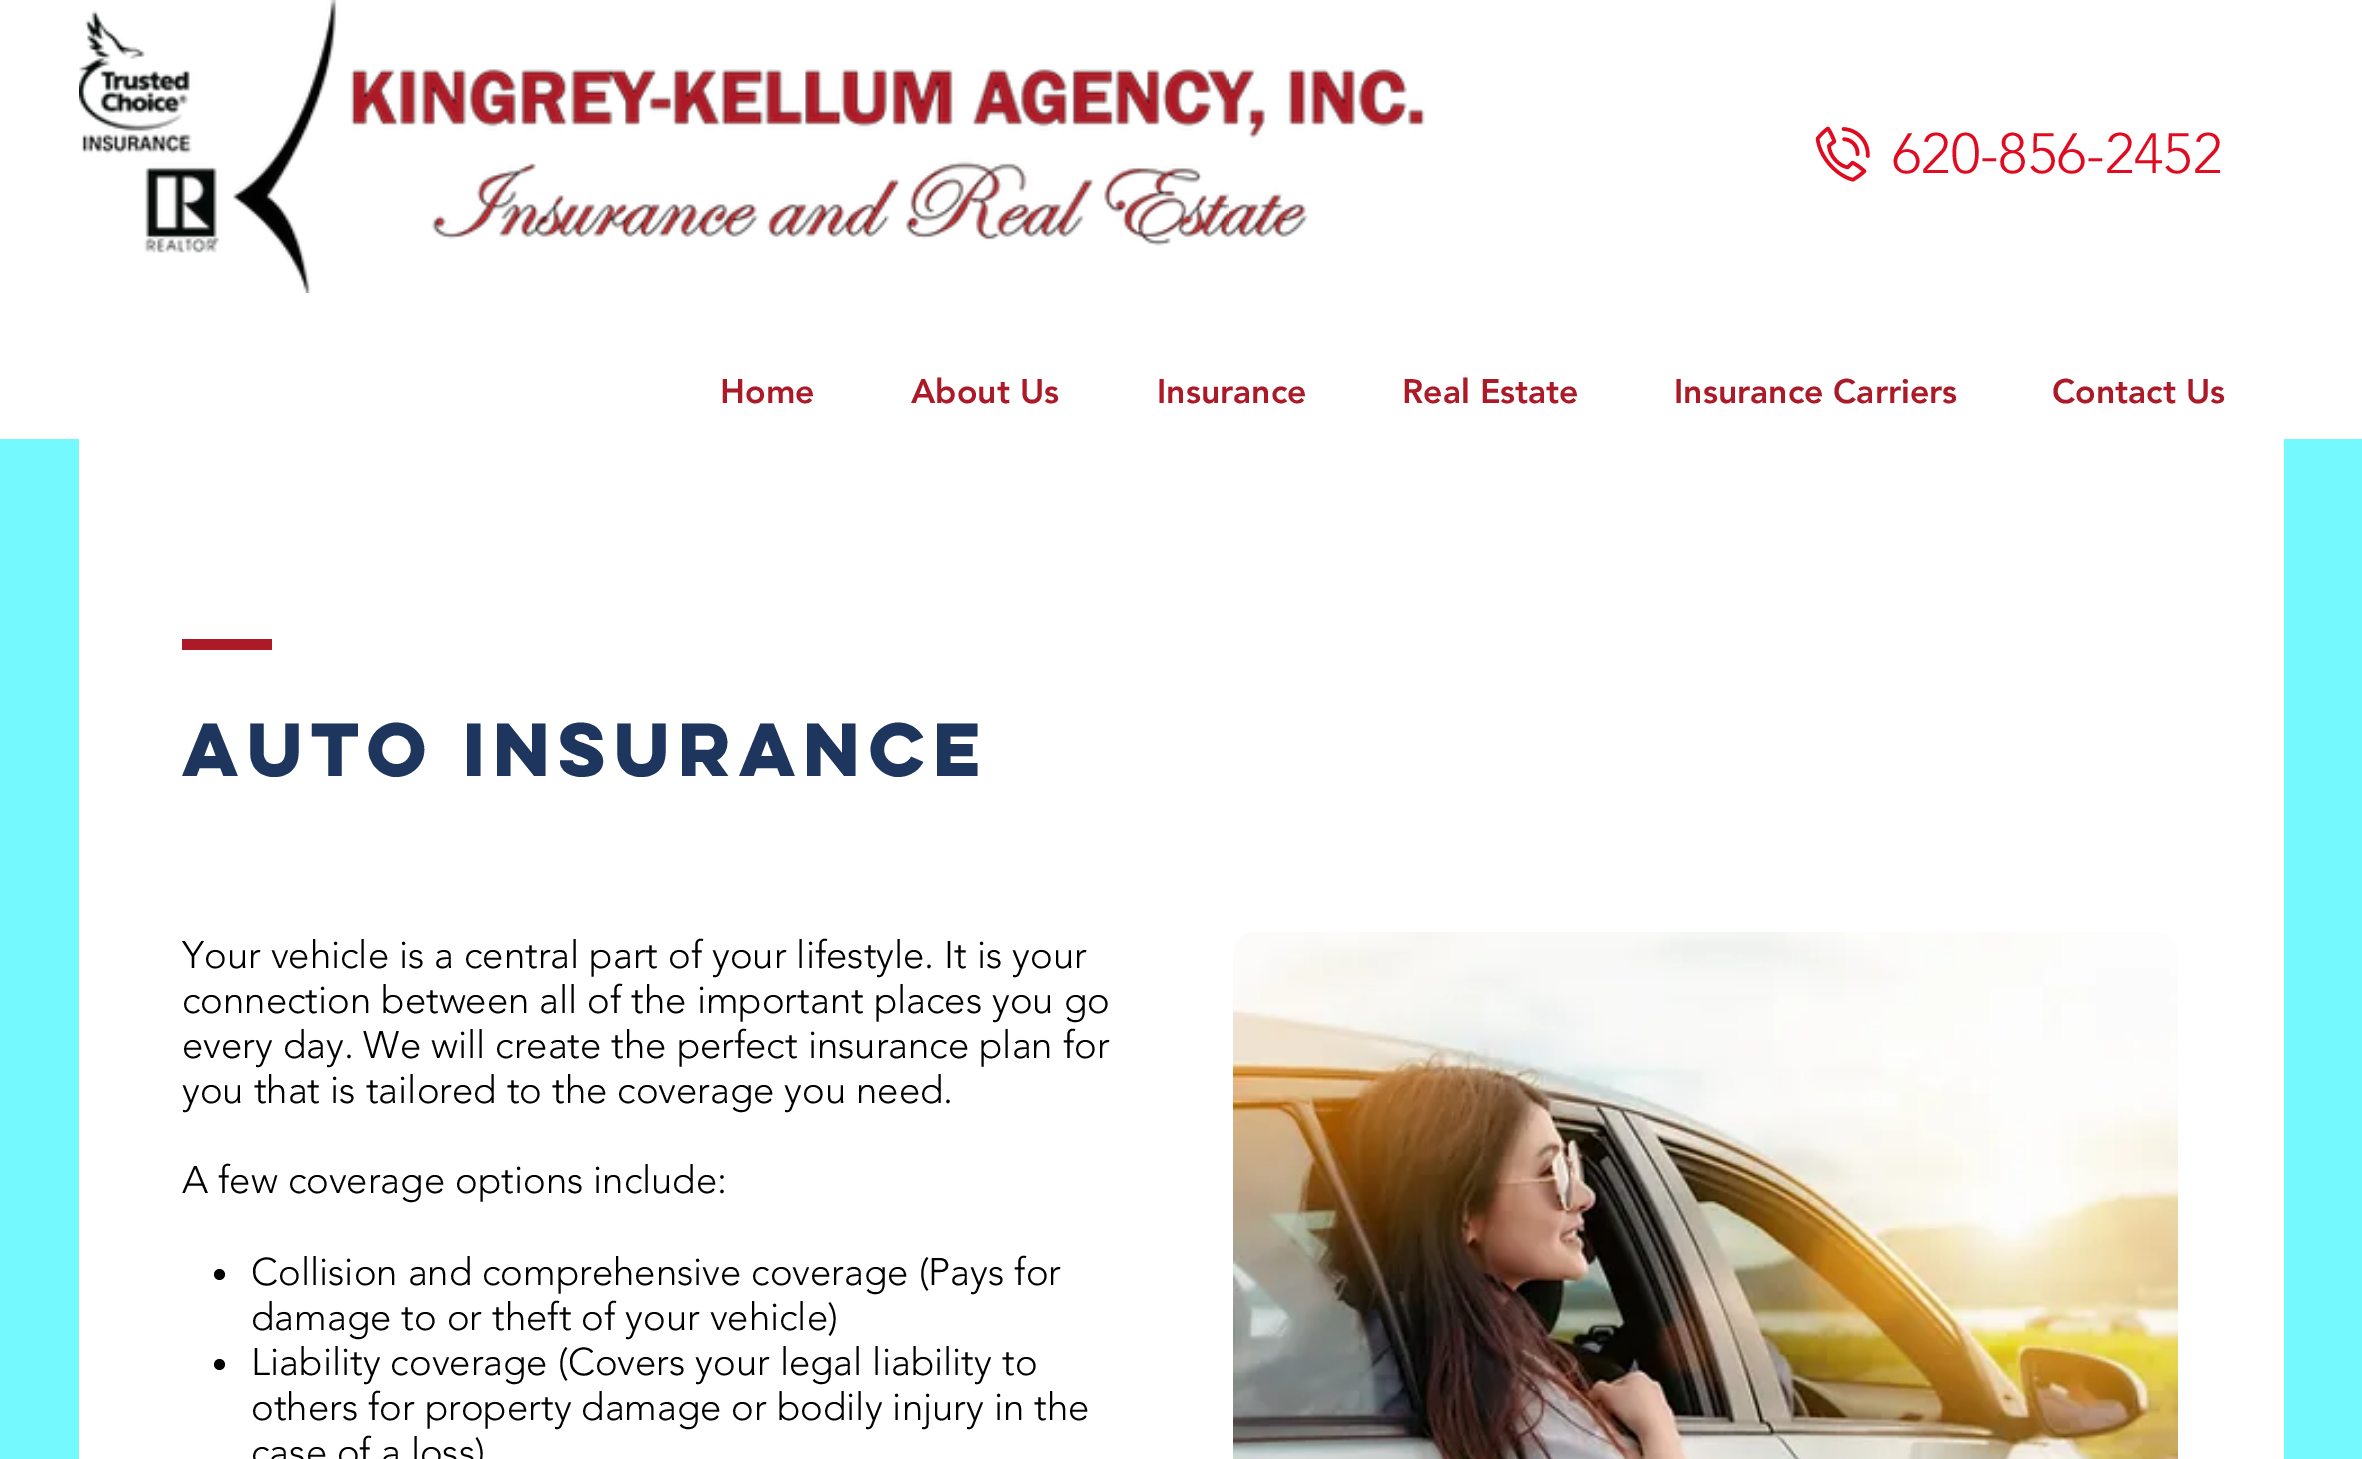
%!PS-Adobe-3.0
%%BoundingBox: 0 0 2362 1459
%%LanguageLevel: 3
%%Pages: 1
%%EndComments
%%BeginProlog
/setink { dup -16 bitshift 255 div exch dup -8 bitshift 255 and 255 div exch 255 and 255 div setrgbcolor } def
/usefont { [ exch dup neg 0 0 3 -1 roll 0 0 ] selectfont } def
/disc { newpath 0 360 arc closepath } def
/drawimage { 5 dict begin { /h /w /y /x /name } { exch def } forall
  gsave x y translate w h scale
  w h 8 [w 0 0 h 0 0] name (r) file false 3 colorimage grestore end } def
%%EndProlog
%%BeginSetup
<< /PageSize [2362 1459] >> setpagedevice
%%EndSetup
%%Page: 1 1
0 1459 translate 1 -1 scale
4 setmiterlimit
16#74F9FF setink
0 0 2362 1459 rectfill
16#FFFFFF setink
0 0 2362 439 rectfill
(img1.raw) 79 0 1346 293 drawimage
(img2.raw) 1815 126 55 56 drawimage
/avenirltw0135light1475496-Light 56.25 usefont
16#E00B20 setink
1892 173 moveto (620-856-2452) show
/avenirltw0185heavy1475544-Black 33.75 usefont
16#AC1927 setink
[
    [(Home) 720 403]
    [(About Us) 911 403]
    [(Insurance) 1157 403]
    [(Real Estate) 1402 403]
    [(Insurance Carriers) 1674 403]
    [(Contact Us) 2052 403]
] { aload pop moveto show } forall
16#FFFFFF setink
79 439 2205 1020 rectfill
16#AC1927 setink
182 639 90 11 rectfill
/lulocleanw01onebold-Bold 67.5 usefont
16#1E355E setink
182 776 moveto -6.75 0 (auto insurance) ashow
/avenirltw0135light1475496-Light 38.25 usefont
16#000000 setink
[
    [(Your vehicle is a central part of your lifestyle. It is your) 182 968]
    [(connection between all of the important places you go) 182 1013]
    [(every day. We will create the perfect insurance plan for) 182 1058]
    [(you that is tailored to the coverage you need.) 182 1103]
    [(A few coverage options include:) 182 1193]
] { aload pop moveto show } forall
219.5 1274.5 5.5 disc fill
251 1285 moveto (Collision and comprehensive coverage \(Pays for) show
251 1330 moveto (damage to or theft of your vehicle\)) show
219.5 1364.5 5.5 disc fill
[
    [(Liability coverage \(Covers your legal liability to) 251 1375]
    [(others for property damage or bodily injury in the) 251 1420]
    [(case of a loss\)) 251 1465]
] { aload pop moveto show } forall
(img3.raw) 1233 932 945 527 drawimage
showpage
%%EOF
